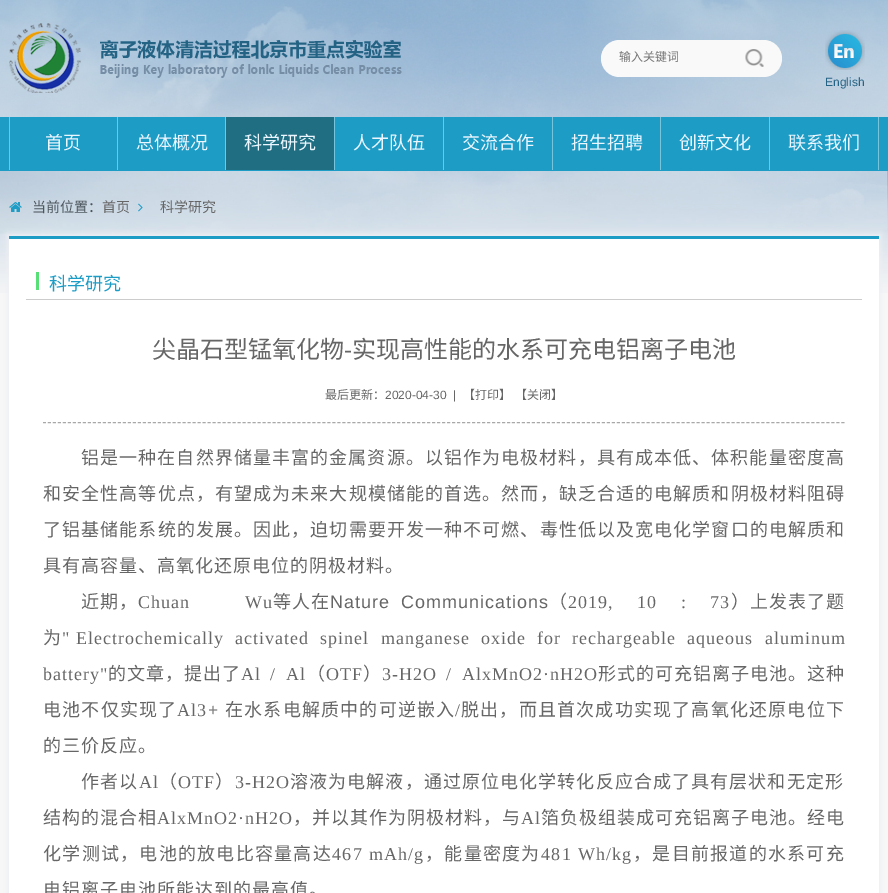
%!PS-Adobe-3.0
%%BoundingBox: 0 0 888 893
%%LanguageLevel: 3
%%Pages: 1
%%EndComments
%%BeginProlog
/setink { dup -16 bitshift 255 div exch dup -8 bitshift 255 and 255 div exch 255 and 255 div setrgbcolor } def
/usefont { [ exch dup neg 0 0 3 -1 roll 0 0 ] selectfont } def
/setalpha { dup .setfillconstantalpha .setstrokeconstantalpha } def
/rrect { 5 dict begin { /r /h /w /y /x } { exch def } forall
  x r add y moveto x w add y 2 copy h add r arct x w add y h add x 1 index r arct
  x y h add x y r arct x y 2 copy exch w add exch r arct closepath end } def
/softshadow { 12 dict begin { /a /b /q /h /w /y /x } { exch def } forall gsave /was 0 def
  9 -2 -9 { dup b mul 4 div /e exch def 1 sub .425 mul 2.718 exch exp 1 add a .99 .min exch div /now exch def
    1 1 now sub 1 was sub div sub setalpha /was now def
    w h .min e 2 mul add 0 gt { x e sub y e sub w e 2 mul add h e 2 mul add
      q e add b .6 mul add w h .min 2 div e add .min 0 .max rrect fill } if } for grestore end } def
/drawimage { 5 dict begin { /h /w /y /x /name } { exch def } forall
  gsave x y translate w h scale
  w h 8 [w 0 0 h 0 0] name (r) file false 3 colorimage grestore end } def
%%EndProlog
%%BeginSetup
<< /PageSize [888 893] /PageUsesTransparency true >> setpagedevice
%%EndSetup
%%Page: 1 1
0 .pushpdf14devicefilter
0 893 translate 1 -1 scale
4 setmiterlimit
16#FFFFFF setink
0 0 888 893 rectfill
(img1.raw) 0 0 888 117 drawimage
(img2.raw) 9 23 393 70 drawimage
16#F9F9F9 setink
601 40 181 37 18.5 rrect fill
/NotoSansCJKSC-Regular 12 usefont
16#757575 setink
619 61 moveto (输入关键词) show
(img3.raw) 745 49 19 18 drawimage
(img4.raw) 825 30 40 40 drawimage
/LiberationSans-Regular 12 usefont
16#256384 setink
825 86 moveto (English) show
[
    [0 117 888 54 16#1D9CC5]
    [117 117 1 53 16#77C4DC]
    [9 117 1 53 16#77C4DC]
] { aload pop setink rectfill } forall
/NotoSansCJKSC-Regular 18 usefont
16#EBF6FF setink
45 149 moveto (首页) show
16#77C4DC setink
225 117 1 53 rectfill
16#EBF6FF setink
136 149 moveto (总体概况) show
16#77C4DC setink
334 117 1 53 rectfill
16#206E82 setink
226 117 108 53 rectfill
16#EBF6FF setink
244 149 moveto (科学研究) show
16#77C4DC setink
443 117 1 53 rectfill
16#EBF6FF setink
353 149 moveto (人才队伍) show
16#77C4DC setink
552 117 1 53 rectfill
16#EBF6FF setink
462 149 moveto (交流合作) show
16#77C4DC setink
660 117 1 53 rectfill
16#EBF6FF setink
571 149 moveto (招生招聘) show
16#77C4DC setink
769 117 1 53 rectfill
16#EBF6FF setink
679 149 moveto (创新文化) show
16#77C4DC setink
878 117 1 53 rectfill
16#EBF6FF setink
788 149 moveto (联系我们) show
16#F7F7F7 setink
0 293 888 600 rectfill
(img5.raw) 0 171 888 122 drawimage
(img6.raw) 9 202 13 10 drawimage
/NotoSansCJKSC-Regular 14 usefont
16#4D565E setink
32 212 moveto (当前位置：) show
16#666666 setink
102 212 moveto (首页) show
(img7.raw) 138 203 5 9 drawimage
160 212 moveto (科学研究) show
16#EDEFF3 setink
7 234 874 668 0 3 1 softshadow
[
    [9 239 870 654 16#FFFFFF]
    [9 236 870 3 16#1D9CC5]
    [26 299 836 1 16#CCCCCC]
    [36 272 3 18 16#58DF75]
] { aload pop setink rectfill } forall
/NotoSansCJKSC-Regular 18 usefont
16#1D9CC5 setink
49 290 moveto (科学研究) show
/NotoSansCJKSC-Regular 24 usefont
16#666666 setink
152 358 moveto (尖晶石型锰氧化物) show
/LiberationSans-Regular 24 usefont
344 358 moveto (-) show
/NotoSansCJKSC-Regular 24 usefont
352 358 moveto (实现高性能的水系可充电铝离子电池) show
16#A8A8A8 setink
[3 1.99] 0 setdash
43 422.5 moveto 845 422.5 lineto stroke
/NotoSansCJKSC-Regular 12 usefont
16#666666 setink
325 399 moveto (最后更新：) show
/LiberationSans-Regular 12 usefont
385 399 moveto (2020-04-30  |) show
/NotoSansCJKSC-Regular 12 usefont
463 399 moveto (【打印】) show
515 399 moveto (【关闭】) show
/NotoSansCJKSC-Regular 18 usefont
81 464 moveto 1.1 0 (铝是一种在自然界储量丰富的金属资源。以铝作为电极材料，具有成本低、体积能量密度高) ashow
43 500 moveto 1.1 0 (和安全性高等优点，有望成为未来大规模储能的首选。然而，缺乏合适的电解质和阴极材料阻碍) ashow
43 536 moveto 1.1 0 (了铝基储能系统的发展。因此，迫切需要开发一种不可燃、毒性低以及宽电化学窗口的电解质和) ashow
43 572 moveto 1 0 (具有高容量、高氧化还原电位的阴极材料。) ashow
81 608 moveto 1 0 (近期，) ashow
/LiberationSerif-Regular 18 usefont
138 608 moveto 50 0 32 1 0 (Chuan Wu) awidthshow
/NotoSansCJKSC-Regular 18 usefont
273 608 moveto 1 0 (等人在) ashow
/LiberationSans-Regular 18 usefont
330 608 moveto 5 0 32 1 0 (Nature Communications) awidthshow
/NotoSansCJKSC-Regular 18 usefont
549 608 moveto 1 0 (（) ashow
/LiberationSerif-Regular 18 usefont
568 608 moveto 18 0 32 1 0 (2019, 10 : 73) awidthshow
/NotoSansCJKSC-Regular 18 usefont
731 608 moveto 1 0 (）上发表了题) ashow
43 644 moveto 1 0 (为) ashow
/LiberationSerif-Regular 18 usefont
62 644 moveto 1 0 (") ashow
76 644 moveto 5.75 0 32 1 0 (Electrochemically activated spinel manganese oxide for rechargeable aqueous aluminum) awidthshow
43 680 moveto 1 0 (battery") ashow
/NotoSansCJKSC-Regular 18 usefont
108 680 moveto 1 0 (的文章，提出了) ashow
/LiberationSerif-Regular 18 usefont
241 680 moveto 4 0 32 1 0 (Al / Al) awidthshow
/NotoSansCJKSC-Regular 18 usefont
307 680 moveto 1 0 (（) ashow
/LiberationSerif-Regular 18 usefont
326 680 moveto 1 0 (OTF) ashow
/NotoSansCJKSC-Regular 18 usefont
363 680 moveto 1 0 (）) ashow
/LiberationSerif-Regular 18 usefont
382 680 moveto 4 0 32 1 0 (3-H2O / AlxMnO2·nH2O) awidthshow
/NotoSansCJKSC-Regular 18 usefont
598 680 moveto 1 0 (形式的可充铝离子电池。这种) ashow
43 716 moveto 1.2 0 (电池不仅实现了) ashow
/LiberationSerif-Regular 18 usefont
177 716 moveto 1.2 0 (Al3+) ashow
/NotoSansCJKSC-Regular 18 usefont
225 716 moveto 1.2 0 (在水系电解质中的可逆嵌入) ashow
/LiberationSerif-Regular 18 usefont
455 716 moveto 1.2 0 (/) ashow
/NotoSansCJKSC-Regular 18 usefont
461 716 moveto 1.2 0 (脱出，而且首次成功实现了高氧化还原电位下) ashow
43 752 moveto 1 0 (的三价反应。) ashow
81 788 moveto 1.1 0 (作者以) ashow
/LiberationSerif-Regular 18 usefont
139 788 moveto 1.1 0 (Al) ashow
/NotoSansCJKSC-Regular 18 usefont
159 788 moveto 1.1 0 (（) ashow
/LiberationSerif-Regular 18 usefont
178 788 moveto 1.1 0 (OTF) ashow
/NotoSansCJKSC-Regular 18 usefont
215 788 moveto 1.1 0 (）) ashow
/LiberationSerif-Regular 18 usefont
235 788 moveto 1.1 0 (3-H2O) ashow
/NotoSansCJKSC-Regular 18 usefont
290 788 moveto 1.1 0 (溶液为电解液，通过原位电化学转化反应合成了具有层状和无定形) ashow
43 824 moveto 1 0 (结构的混合相) ashow
/LiberationSerif-Regular 18 usefont
157 824 moveto 1 0 (AlxMnO2·nH2O) ashow
/NotoSansCJKSC-Regular 18 usefont
293 824 moveto 1 0 (，并以其作为阴极材料，与) ashow
/LiberationSerif-Regular 18 usefont
521 824 moveto 1 0 (Al) ashow
/NotoSansCJKSC-Regular 18 usefont
541 824 moveto 1 0 (箔负极组装成可充铝离子电池。经电) ashow
43 860 moveto 1.25 0 (化学测试，电池的放电比容量高达) ashow
/LiberationSerif-Regular 18 usefont
332 860 moveto 1.25 0 (467 mAh/g) ashow
/NotoSansCJKSC-Regular 18 usefont
425 860 moveto 1.25 0 (，能量密度为) ashow
/LiberationSerif-Regular 18 usefont
541 860 moveto 1.25 0 (481 Wh/kg) ashow
/NotoSansCJKSC-Regular 18 usefont
633 860 moveto 1.25 0 (，是目前报道的水系可充) ashow
43 896 moveto 1 0 (电铝离子电池所能达到的最高值。) ashow
.poppdf14devicefilter showpage
%%EOF
